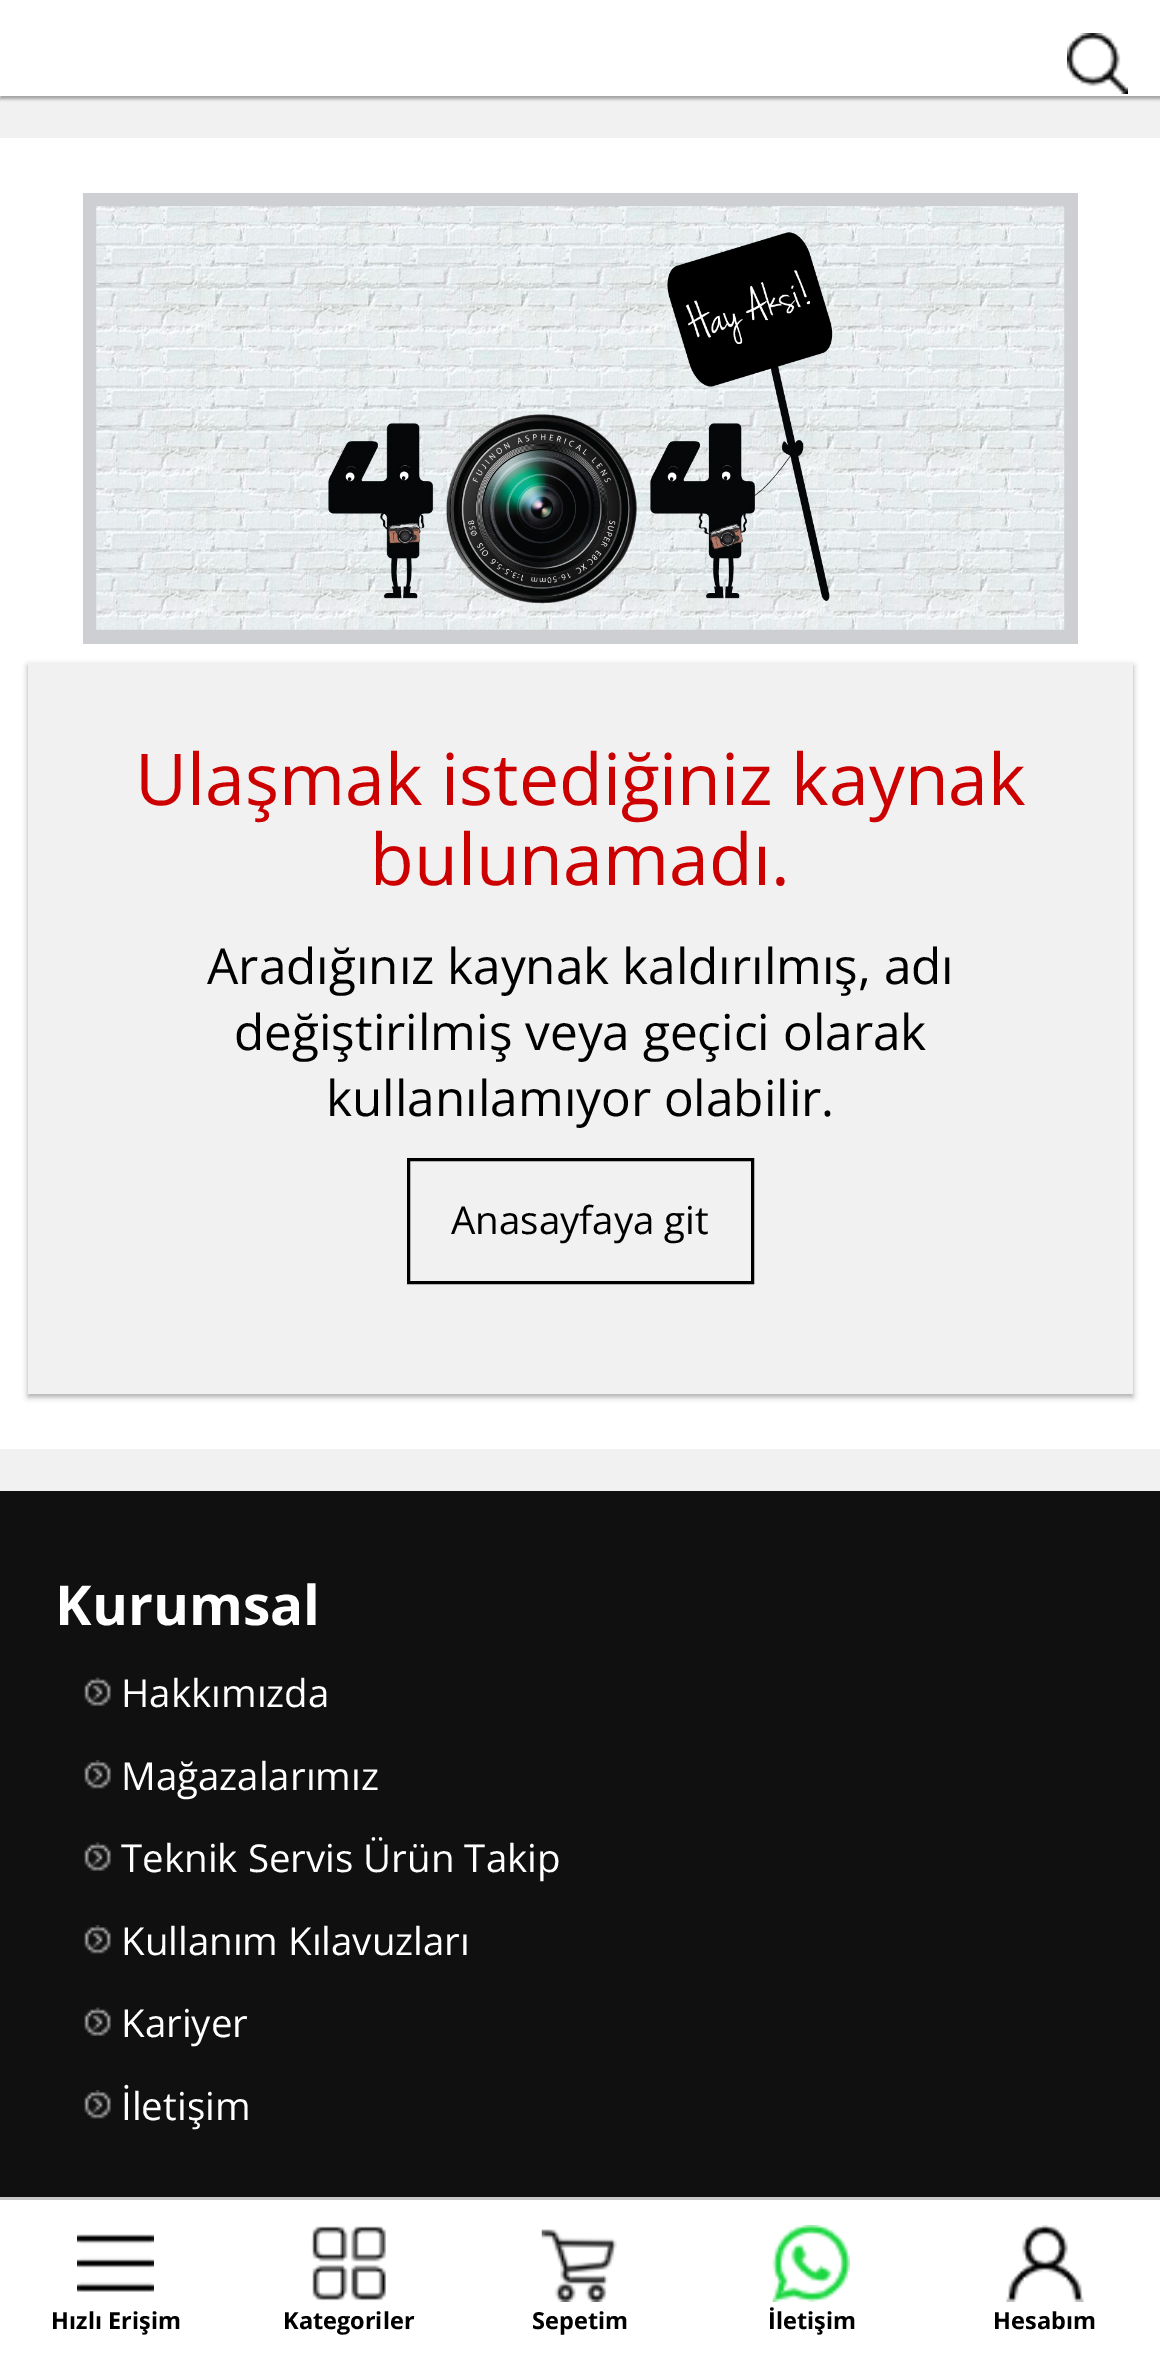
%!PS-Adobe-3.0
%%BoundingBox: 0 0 1160 2378
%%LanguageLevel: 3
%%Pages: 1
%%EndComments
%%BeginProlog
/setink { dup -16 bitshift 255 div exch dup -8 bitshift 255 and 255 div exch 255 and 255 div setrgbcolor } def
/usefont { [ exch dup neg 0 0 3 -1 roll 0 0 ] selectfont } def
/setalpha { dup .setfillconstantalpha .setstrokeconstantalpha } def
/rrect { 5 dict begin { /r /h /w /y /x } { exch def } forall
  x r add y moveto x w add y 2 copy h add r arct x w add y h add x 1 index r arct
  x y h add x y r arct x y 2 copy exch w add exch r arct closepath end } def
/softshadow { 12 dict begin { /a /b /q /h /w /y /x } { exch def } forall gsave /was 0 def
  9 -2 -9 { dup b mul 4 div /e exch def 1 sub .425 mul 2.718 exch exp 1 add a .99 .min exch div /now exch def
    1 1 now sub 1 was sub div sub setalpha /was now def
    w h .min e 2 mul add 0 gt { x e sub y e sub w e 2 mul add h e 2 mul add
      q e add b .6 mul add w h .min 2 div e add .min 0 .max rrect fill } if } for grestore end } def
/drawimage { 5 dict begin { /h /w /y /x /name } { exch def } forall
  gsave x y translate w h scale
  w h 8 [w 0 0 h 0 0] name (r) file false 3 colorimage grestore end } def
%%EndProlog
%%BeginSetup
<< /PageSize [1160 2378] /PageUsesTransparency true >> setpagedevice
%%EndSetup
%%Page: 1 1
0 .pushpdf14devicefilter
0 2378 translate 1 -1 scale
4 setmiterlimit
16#F1F1F1 setink
0 0 1160 2378 rectfill
16#555555 setink
0 3 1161 96 0 1.5 0.5 softshadow
16#FFFFFF setink
0 0 1160 96 rectfill
(img1.raw) 1067 33 61 61 drawimage
0 138 1160 1311 rectfill
16#CECFD3 setink
83 193 995 451 rectfill
(img2.raw) 96 206 969 424 drawimage
16#555555 setink
28 666 1105 731 0 3 0.5 softshadow
16#F1F1F1 setink
28 663 1105 731 rectfill
/OpenSans-Regular 71.5 usefont
16#CC0000 setink
135 805 moveto (Ulaşmak istediğiniz kaynak) show
370 885 moveto (bulunamadı.) show
/OpenSans-Regular 49.5 usefont
16#000000 setink
[
    [(Aradığınız kaynak kaldırılmış, adı) 207 984]
    [(değiştirilmiş veya geçici olarak) 234 1050]
    [(kullanılamıyor olabilir.) 326 1116]
] { aload pop moveto show } forall
3 setlinewidth
408.5 1159.5 344 123 rectstroke
/OpenSans-Regular 38.5 usefont
451 1234 moveto (Anasayfaya git) show
16#101010 setink
0 1491 1160 706 rectfill
/OpenSans-Bold 55 usefont
16#FFFFFF setink
55 1625 moveto (Kurumsal) show
(img3.raw) 84 1677 27 29 drawimage
/OpenSans-Regular 38.5 usefont
121 1707 moveto (Hakkımızda) show
(img4.raw) 84 1760 27 29 drawimage
121 1790 moveto (Mağazalarımız) show
(img3.raw) 84 1842 27 29 drawimage
121 1872 moveto (Teknik Servis Ürün Takip) show
(img4.raw) 84 1925 27 29 drawimage
121 1955 moveto (Kullanım Kılavuzları) show
(img3.raw) 84 2007 27 29 drawimage
121 2037 moveto (Kariyer) show
(img4.raw) 84 2090 27 29 drawimage
121 2120 moveto (İletişim) show
0 2200 1160 178 rectfill
16#C7C7C7 setink
0 2197 1160 3 rectfill
(img5.raw) 77 2234 77 58 drawimage
/OpenSans-Bold 23.5 usefont
16#000000 setink
51 2329 moveto (Hızlı Erişim) show
(img6.raw) 311 2226 75 75 drawimage
283 2329 moveto (Kategoriler) show
(img7.raw) 541 2229 76 73 drawimage
532 2329 moveto (Sepetim) show
(img8.raw) 772 2225 78 77 drawimage
768 2329 moveto (İletişim) show
(img9.raw) 1006 2225 78 77 drawimage
993 2329 moveto (Hesabım) show
.poppdf14devicefilter showpage
%%EOF
